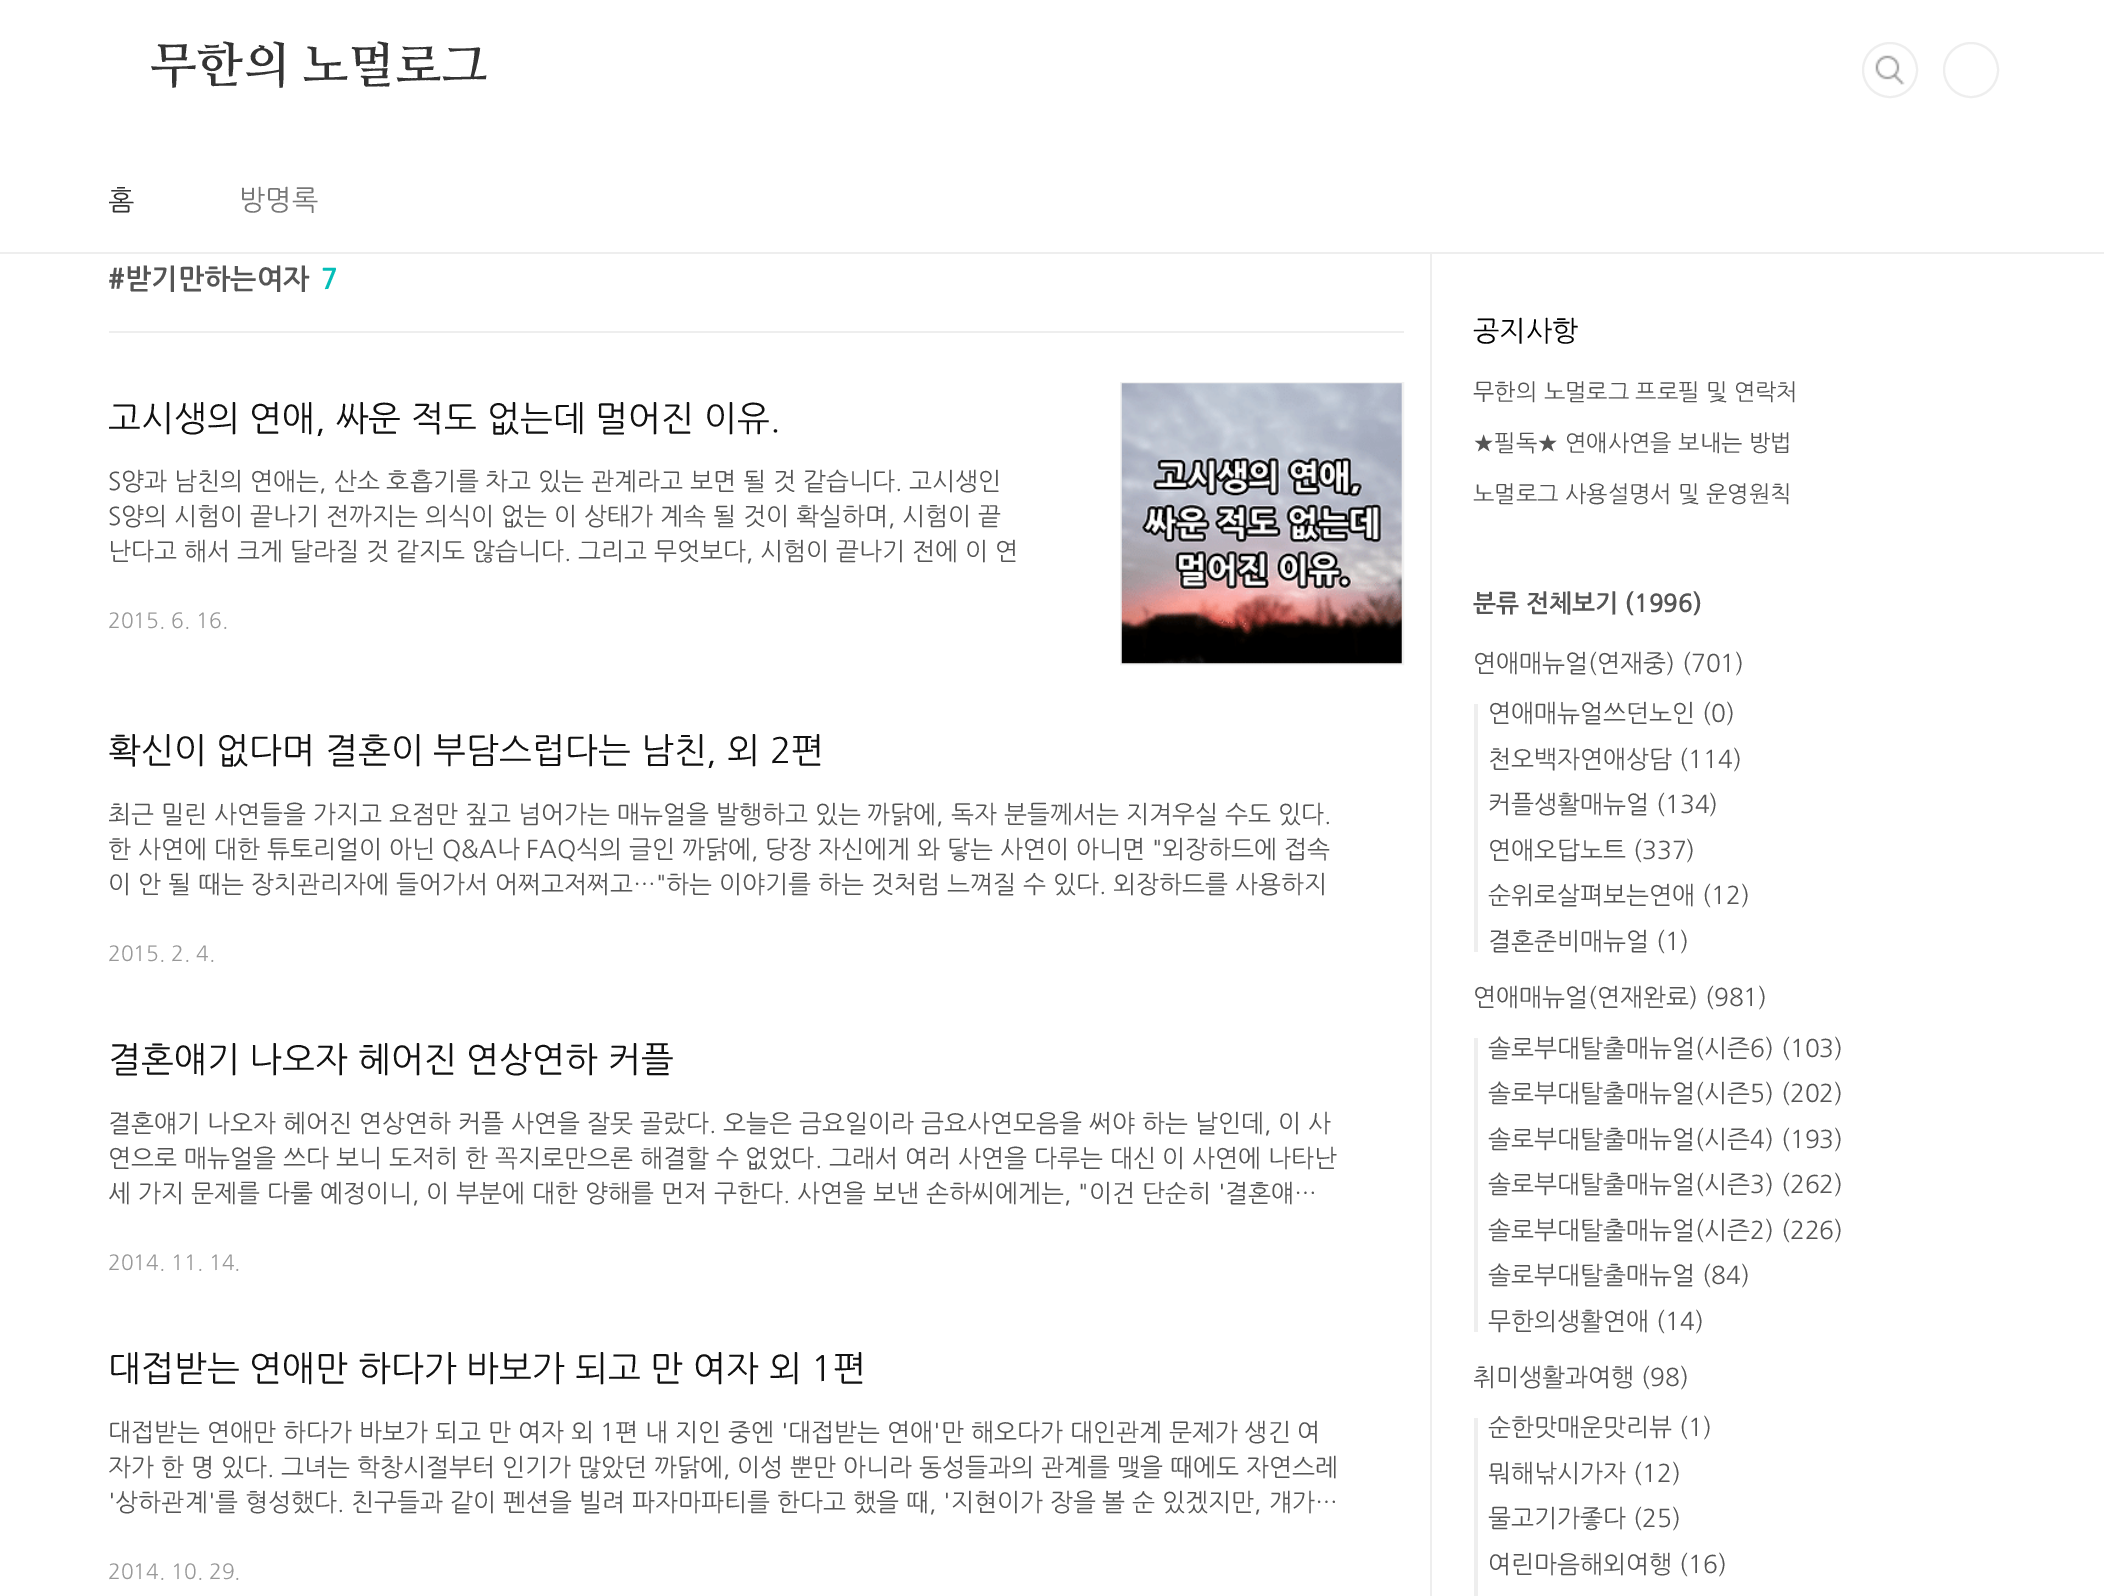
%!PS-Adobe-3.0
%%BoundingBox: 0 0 2104 1596
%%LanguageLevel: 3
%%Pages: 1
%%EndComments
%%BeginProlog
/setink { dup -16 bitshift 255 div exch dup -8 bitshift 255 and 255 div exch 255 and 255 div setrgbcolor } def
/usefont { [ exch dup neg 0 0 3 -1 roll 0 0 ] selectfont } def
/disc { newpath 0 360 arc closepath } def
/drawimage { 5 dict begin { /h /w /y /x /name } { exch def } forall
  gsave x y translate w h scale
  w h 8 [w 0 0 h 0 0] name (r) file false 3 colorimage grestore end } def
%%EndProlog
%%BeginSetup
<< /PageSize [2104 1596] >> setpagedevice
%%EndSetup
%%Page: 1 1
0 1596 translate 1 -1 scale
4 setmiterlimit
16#FFFFFF setink
0 0 2104 1596 rectfill
16#EEEEEE setink
0 252 2104 2 rectfill
/NanumMyeongjo-Bold 49 usefont
16#333333 setink
150 82 moveto -0.25 0 (무한의 노멀로그) ashow
(img1.raw) 1875 55 30 30 drawimage
16#EEEEEE setink
2 setlinewidth
1890 70 27 disc stroke
1971 70 27 disc stroke
gsave
109 137 1890 115 rectclip
/NanumGothic-Regular 28 usefont
16#333333 setink
108 210 moveto (홈) show
grestore
/NanumGothic-Regular 28 usefont
16#777777 setink
239 210 moveto (방명록) show
16#EEEEEE setink
109 331 1295 2 rectfill
/NanumGothic-Bold 28 usefont
16#555555 setink
108 289 moveto (#받기만하는여자) show
16#04BEB8 setink
321 289 moveto (7) show
/NanumGothic-Regular 35 usefont
16#111111 setink
108 431 moveto (고시생의 연애, 싸운 적도 없는데 멀어진 이유.) show
16#F1F1F1 setink
1121 383 282 281 rectstroke
(img2.raw) 1121 383 281 281 drawimage
/NanumGothic-Regular 24.5 usefont
16#555555 setink
[
    [(S양과 남친의 연애는, 산소 호흡기를 차고 있는 관계라고 보면 될 것 같습니다. 고시생인) 108 490]
    [(S양의 시험이 끝나기 전까지는 의식이 없는 이 상태가 계속 될 것이 확실하며, 시험이 끝) 108 525]
    [(난다고 해서 크게 달라질 것 같지도 않습니다. 그리고 무엇보다, 시험이 끝나기 전에 이 연) 108 560]
] { aload pop moveto show } forall
/NanumGothic-Regular 21 usefont
16#999999 setink
108 628 moveto (2015. 6. 16.) show
/NanumGothic-Regular 35 usefont
16#111111 setink
108 763 moveto (확신이 없다며 결혼이 부담스럽다는 남친, 외 2편) show
/NanumGothic-Regular 24.5 usefont
16#555555 setink
[
    [(최근 밀린 사연들을 가지고 요점만 짚고 넘어가는 매뉴얼을 발행하고 있는 까닭에, 독자 분들께서는 지겨우실 수도 있다.) 108 823]
    [(한 사연에 대한 튜토리얼이 아닌 Q&A나 FAQ식의 글인 까닭에, 당장 자신에게 와 닿는 사연이 아니면 "외장하드에 접속) 108 858]
    [(이 안 될 때는 장치관리자에 들어가서 어쩌고저쩌고…"하는 이야기를 하는 것처럼 느껴질 수 있다. 외장하드를 사용하지) 108 893]
] { aload pop moveto show } forall
/NanumGothic-Regular 21 usefont
16#999999 setink
108 961 moveto (2015. 2. 4.) show
/NanumGothic-Regular 35 usefont
16#111111 setink
108 1072 moveto (결혼얘기 나오자 헤어진 연상연하 커플) show
/NanumGothic-Regular 24.5 usefont
16#555555 setink
[
    [(결혼얘기 나오자 헤어진 연상연하 커플 사연을 잘못 골랐다. 오늘은 금요일이라 금요사연모음을 써야 하는 날인데, 이 사) 108 1132]
    [(연으로 매뉴얼을 쓰다 보니 도저히 한 꼭지로만으론 해결할 수 없었다. 그래서 여러 사연을 다루는 대신 이 사연에 나타난) 108 1167]
    [(세 가지 문제를 다룰 예정이니, 이 부분에 대한 양해를 먼저 구한다. 사연을 보낸 손하씨에게는, "이건 단순히 '결혼얘…) 108 1202]
] { aload pop moveto show } forall
/NanumGothic-Regular 21 usefont
16#999999 setink
108 1270 moveto (2014. 11. 14.) show
/NanumGothic-Regular 35 usefont
16#111111 setink
108 1381 moveto (대접받는 연애만 하다가 바보가 되고 만 여자 외 1편) show
/NanumGothic-Regular 24.5 usefont
16#555555 setink
[
    [(대접받는 연애만 하다가 바보가 되고 만 여자 외 1편 내 지인 중엔 '대접받는 연애'만 해오다가 대인관계 문제가 생긴 여) 108 1441]
    [(자가 한 명 있다. 그녀는 학창시절부터 인기가 많았던 까닭에, 이성 뿐만 아니라 동성들과의 관계를 맺을 때에도 자연스레) 108 1476]
    [('상하관계'를 형성했다. 친구들과 같이 펜션을 빌려 파자마파티를 한다고 했을 때, '지현이가 장을 볼 순 있겠지만, 걔가…) 108 1511]
] { aload pop moveto show } forall
/NanumGothic-Regular 21 usefont
16#999999 setink
108 1579 moveto (2014. 10. 29.) show
16#EEEEEE setink
1430 254 2 1342 rectfill
/NanumGothic-Regular 28 usefont
16#000000 setink
1473 341 moveto (공지사항) show
/NanumGothic-Regular 22.75 usefont
16#555555 setink
[
    [(무한의 노멀로그 프로필 및 연락처) 1473 400]
    [(★필독★ 연애사연을 보내는 방법) 1473 451]
    [(노멀로그 사용설명서 및 운영원칙) 1473 502]
] { aload pop moveto show } forall
/NanumGothic-Bold 24.5 usefont
1473 612 moveto (분류 전체보기 \(1996\)) show
/NanumGothic-Regular 24.5 usefont
1473 672 moveto (연애매뉴얼\(연재중\) \(701\)) show
16#EEEEEE setink
1474 704 4 248 rectfill
16#555555 setink
[
    [(연애매뉴얼쓰던노인 \(0\)) 1488 722]
    [(천오백자연애상담 \(114\)) 1488 768]
    [(커플생활매뉴얼 \(134\)) 1488 813]
    [(연애오답노트 \(337\)) 1488 859]
    [(순위로살펴보는연애 \(12\)) 1488 904]
    [(결혼준비매뉴얼 \(1\)) 1488 950]
    [(연애매뉴얼\(연재완료\) \(981\)) 1473 1006]
] { aload pop moveto show } forall
16#EEEEEE setink
1474 1038 4 294 rectfill
16#555555 setink
[
    [(솔로부대탈출매뉴얼\(시즌6\) \(103\)) 1488 1057]
    [(솔로부대탈출매뉴얼\(시즌5\) \(202\)) 1488 1102]
    [(솔로부대탈출매뉴얼\(시즌4\) \(193\)) 1488 1148]
    [(솔로부대탈출매뉴얼\(시즌3\) \(262\)) 1488 1193]
    [(솔로부대탈출매뉴얼\(시즌2\) \(226\)) 1488 1239]
    [(솔로부대탈출매뉴얼 \(84\)) 1488 1284]
    [(무한의생활연애 \(14\)) 1488 1330]
    [(취미생활과여행 \(98\)) 1473 1386]
] { aload pop moveto show } forall
16#EEEEEE setink
1474 1418 4 178 rectfill
16#555555 setink
[
    [(순한맛매운맛리뷰 \(1\)) 1488 1436]
    [(뭐해낚시가자 \(12\)) 1488 1482]
    [(물고기가좋다 \(25\)) 1488 1527]
    [(여린마음해외여행 \(16\)) 1488 1573]
] { aload pop moveto show } forall
showpage
%%EOF
